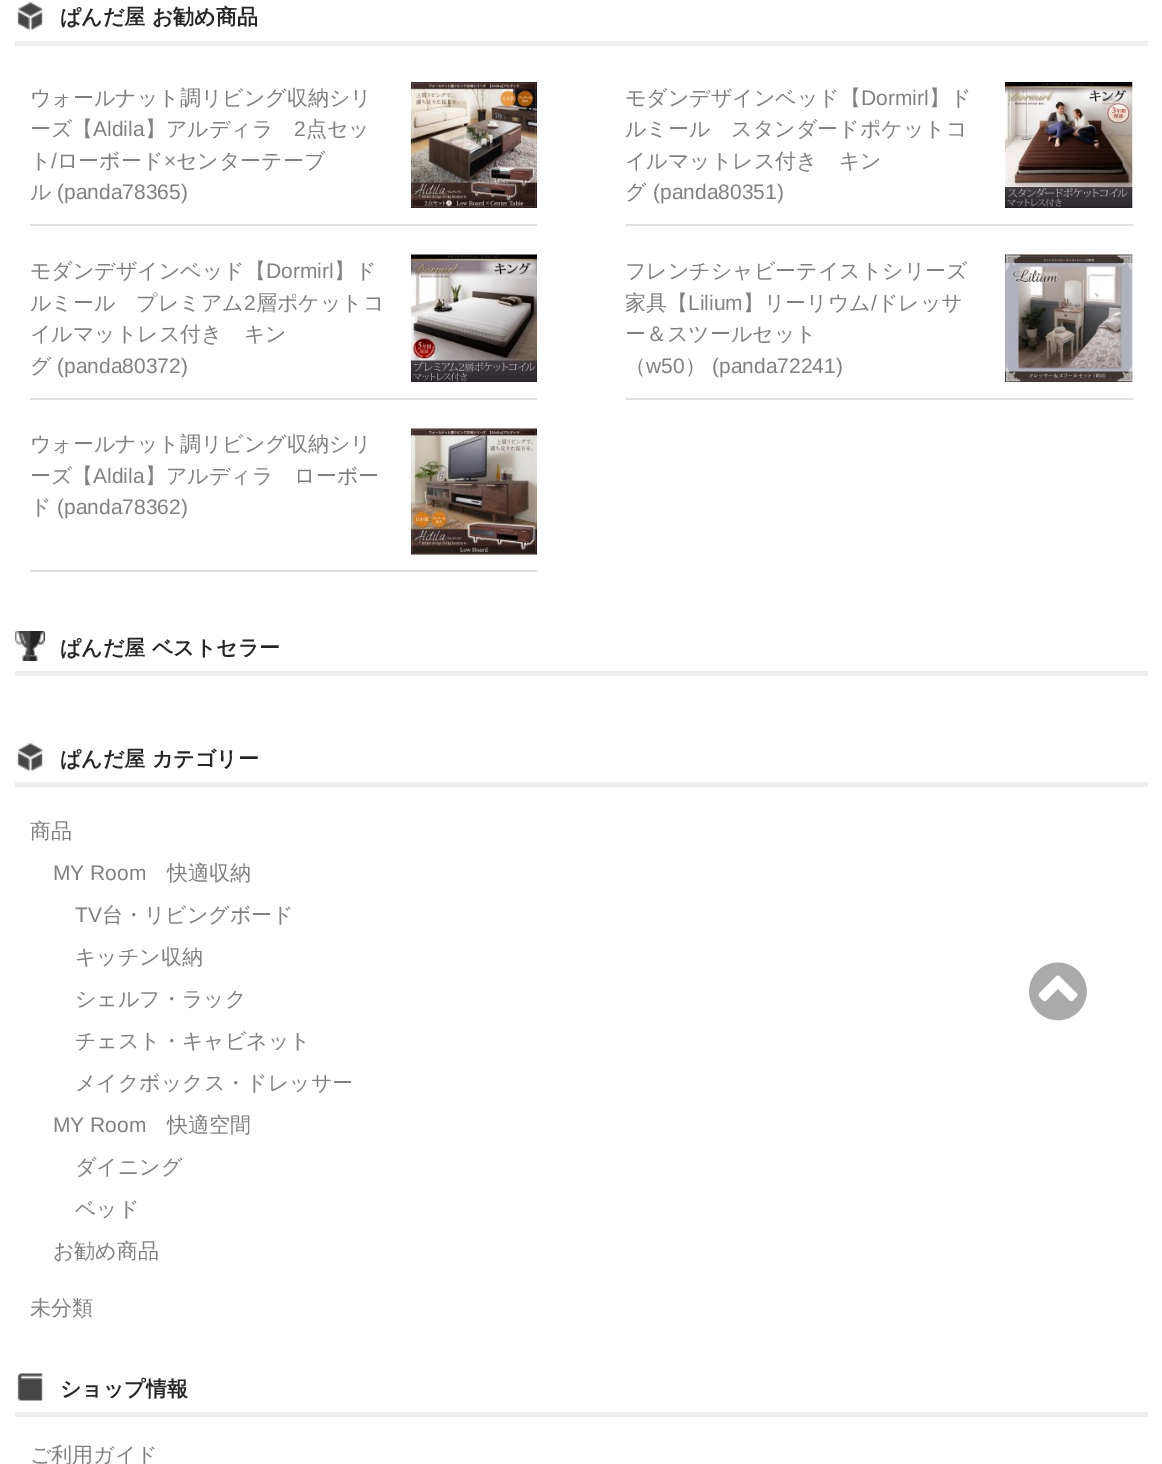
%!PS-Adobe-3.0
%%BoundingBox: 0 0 1162 1464
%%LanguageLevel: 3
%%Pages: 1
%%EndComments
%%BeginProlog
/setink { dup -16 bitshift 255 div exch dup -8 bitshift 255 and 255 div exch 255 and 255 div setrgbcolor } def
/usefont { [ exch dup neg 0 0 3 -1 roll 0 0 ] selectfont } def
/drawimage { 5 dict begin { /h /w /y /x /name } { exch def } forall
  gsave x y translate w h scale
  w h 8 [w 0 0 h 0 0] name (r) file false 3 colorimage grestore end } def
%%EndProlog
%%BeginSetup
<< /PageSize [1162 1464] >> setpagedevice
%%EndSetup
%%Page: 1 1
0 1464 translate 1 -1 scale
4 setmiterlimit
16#FFFFFF setink
0 0 1162 1464 rectfill
16#EEEEEE setink
15 41 1133 5 rectfill
(img1.raw) 17 2 26 28 drawimage
/WenQuanYiZenHei-Bold 21 usefont
16#262626 setink
60 24 moveto (ぱんだ屋 お勧め商品) show
16#E0E0E0 setink
30 224 507 2 rectfill
/WenQuanYiZenHei-Medium 21 usefont
16#808080 setink
30 105 moveto (ウォールナット調リビング収納シリ) show
30 136 moveto (ーズ【) show
/LiberationSans-Regular 21 usefont
93 136 moveto (Aldila) show
/WenQuanYiZenHei-Medium 21 usefont
145 136 moveto (】アルディラ) show
/LiberationSans-Regular 21 usefont
294 136 moveto (2) show
/WenQuanYiZenHei-Medium 21 usefont
306 136 moveto (点セッ) show
30 168 moveto (ト) show
/LiberationSans-Regular 21 usefont
51 168 moveto (/) show
/WenQuanYiZenHei-Medium 21 usefont
57 168 moveto (ローボード) show
/LiberationSans-Regular 21 usefont
164 168 moveto (×) show
/WenQuanYiZenHei-Medium 21 usefont
176 168 moveto (センターテーブ) show
30 199 moveto (ル) show
/LiberationSans-Regular 21 usefont
57 199 moveto (\(panda78365\)) show
(img2.raw) 411 82 126 126 drawimage
16#E0E0E0 setink
626 224 507 2 rectfill
/WenQuanYiZenHei-Medium 21 usefont
16#808080 setink
625 105 moveto (モダンデザインベッド【) show
/LiberationSans-Regular 21 usefont
861 105 moveto (Dormirl) show
/WenQuanYiZenHei-Medium 21 usefont
[
    [(】ド) 929 105]
    [(ルミール　スタンダードポケットコ) 625 136]
    [(イルマットレス付き　キン) 625 168]
    [(グ) 625 199]
] { aload pop moveto show } forall
/LiberationSans-Regular 21 usefont
653 199 moveto (\(panda80351\)) show
(img3.raw) 1005 82 128 126 drawimage
16#E0E0E0 setink
30 398 507 2 rectfill
/WenQuanYiZenHei-Medium 21 usefont
16#808080 setink
30 278 moveto (モダンデザインベッド【) show
/LiberationSans-Regular 21 usefont
266 278 moveto (Dormirl) show
/WenQuanYiZenHei-Medium 21 usefont
334 278 moveto (】ド) show
30 310 moveto (ルミール　プレミアム) show
/LiberationSans-Regular 21 usefont
244 310 moveto (2) show
/WenQuanYiZenHei-Medium 21 usefont
[
    [(層ポケットコ) 256 310]
    [(イルマットレス付き　キン) 30 341]
    [(グ) 30 373]
] { aload pop moveto show } forall
/LiberationSans-Regular 21 usefont
57 373 moveto (\(panda80372\)) show
(img4.raw) 411 254 126 128 drawimage
16#E0E0E0 setink
626 398 507 2 rectfill
/WenQuanYiZenHei-Medium 21 usefont
16#808080 setink
625 278 moveto (フレンチシャビーテイストシリーズ) show
625 310 moveto (家具【) show
/LiberationSans-Regular 21 usefont
688 310 moveto (Lilium) show
/WenQuanYiZenHei-Medium 21 usefont
743 310 moveto (】リーリウム) show
/LiberationSans-Regular 21 usefont
871 310 moveto (/) show
/WenQuanYiZenHei-Medium 21 usefont
[
    [(ドレッサ) 877 310]
    [(ー＆スツールセット) 625 341]
    [(（) 625 373]
] { aload pop moveto show } forall
/LiberationSans-Regular 21 usefont
646 373 moveto (w50) show
/WenQuanYiZenHei-Medium 21 usefont
685 373 moveto (）) show
/LiberationSans-Regular 21 usefont
712 373 moveto (\(panda72241\)) show
(img5.raw) 1005 254 128 128 drawimage
16#E0E0E0 setink
30 570 507 2 rectfill
/WenQuanYiZenHei-Medium 21 usefont
16#808080 setink
30 451 moveto (ウォールナット調リビング収納シリ) show
30 483 moveto (ーズ【) show
/LiberationSans-Regular 21 usefont
93 483 moveto (Aldila) show
/WenQuanYiZenHei-Medium 21 usefont
145 483 moveto (】アルディラ　ローボー) show
30 514 moveto (ド) show
/LiberationSans-Regular 21 usefont
57 514 moveto (\(panda78362\)) show
(img6.raw) 411 428 126 127 drawimage
16#EEEEEE setink
15 671 1133 5 rectfill
(img7.raw) 15 631 30 30 drawimage
/WenQuanYiZenHei-Bold 21 usefont
16#262626 setink
60 655 moveto (ぱんだ屋 ベストセラー) show
16#EEEEEE setink
15 782 1133 5 rectfill
(img1.raw) 17 743 26 28 drawimage
16#262626 setink
60 766 moveto (ぱんだ屋 カテゴリー) show
/WenQuanYiZenHei-Medium 21 usefont
16#808080 setink
30 838 moveto (商品) show
/LiberationSans-Regular 21 usefont
53 880 moveto (MY Room) show
/WenQuanYiZenHei-Medium 21 usefont
167 880 moveto (快適収納) show
/LiberationSans-Regular 21 usefont
75 922 moveto (TV) show
/WenQuanYiZenHei-Medium 21 usefont
[
    [(台・リビングボード) 102 922]
    [(キッチン収納) 75 964]
    [(シェルフ・ラック) 75 1006]
    [(チェスト・キャビネット) 75 1048]
    [(メイクボックス・ドレッサー) 75 1090]
] { aload pop moveto show } forall
/LiberationSans-Regular 21 usefont
53 1132 moveto (MY Room) show
/WenQuanYiZenHei-Medium 21 usefont
[
    [(快適空間) 167 1132]
    [(ダイニング) 75 1174]
    [(ベッド) 75 1216]
    [(お勧め商品) 53 1258]
    [(未分類) 30 1315]
] { aload pop moveto show } forall
16#EEEEEE setink
15 1412 1133 5 rectfill
(img8.raw) 17 1373 26 28 drawimage
/WenQuanYiZenHei-Bold 21 usefont
16#262626 setink
60 1396 moveto (ショップ情報) show
/WenQuanYiZenHei-Medium 21 usefont
16#808080 setink
30 1462 moveto (ご利用ガイド) show
(img9.raw) 1029 962 58 59 drawimage
showpage
%%EOF
